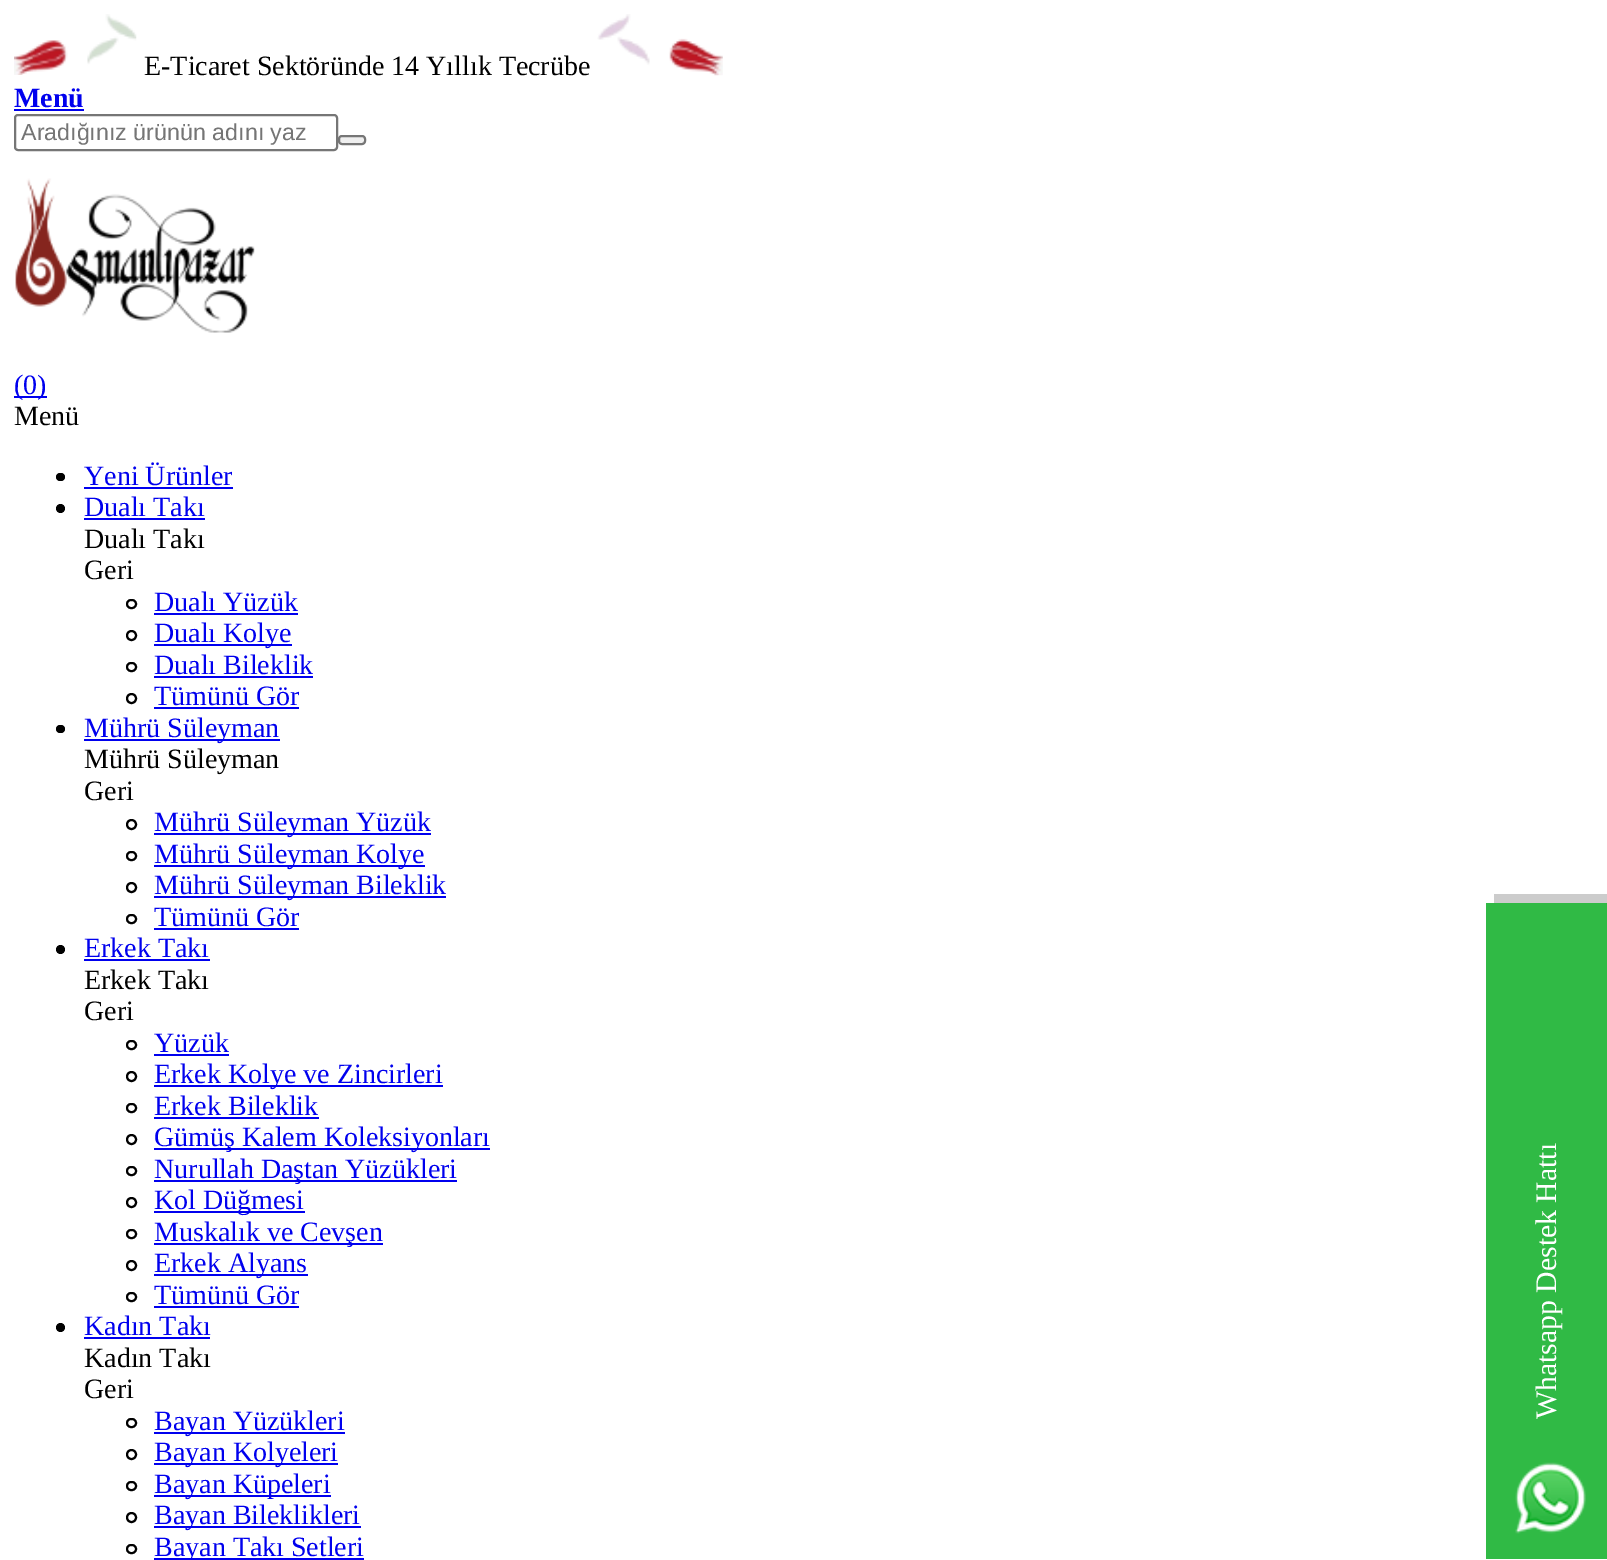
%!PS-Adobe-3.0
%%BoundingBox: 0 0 1607 1560
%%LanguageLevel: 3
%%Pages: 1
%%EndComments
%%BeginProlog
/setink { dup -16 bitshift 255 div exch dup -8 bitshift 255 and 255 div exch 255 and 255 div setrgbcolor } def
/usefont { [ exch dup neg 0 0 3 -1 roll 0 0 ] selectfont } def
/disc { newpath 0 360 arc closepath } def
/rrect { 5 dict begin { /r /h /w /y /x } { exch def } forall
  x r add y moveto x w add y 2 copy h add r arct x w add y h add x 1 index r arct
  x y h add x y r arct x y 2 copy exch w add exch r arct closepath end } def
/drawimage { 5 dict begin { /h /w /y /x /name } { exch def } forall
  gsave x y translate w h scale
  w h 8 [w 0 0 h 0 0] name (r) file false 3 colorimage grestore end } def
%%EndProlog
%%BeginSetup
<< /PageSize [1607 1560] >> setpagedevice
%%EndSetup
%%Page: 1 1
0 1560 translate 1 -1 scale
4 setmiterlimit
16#FFFFFF setink
0 0 1607 1560 rectfill
(img1.raw) 14 14 123 61 drawimage
/LiberationSerif-Regular 28 usefont
16#000000 setink
144 75 moveto (E-Ticaret Sektöründe 14 Yıllık Tecrübe) show
(img2.raw) 597 14 126 62 drawimage
/LiberationSerif-Bold 28 usefont
16#0000EE setink
14 107 moveto (Menü) show
14 109 70 2 rectfill
16#767676 setink
2 setlinewidth
15 115 322 35 3 rrect stroke
/LiberationSans-Regular 23.25 usefont
16#757575 setink
21 140 moveto (Aradığınız ürünün adını yaz) show
16#EFEFEF setink
339 136 26 8 3 rrect gsave fill grestore
16#767676 setink
stroke
(img3.raw) 15 178 240 155 drawimage
16#0000EE setink
14 396 33 2 rectfill
/LiberationSerif-Regular 28 usefont
14 394 moveto (\(0\)) show
16#000000 setink
14 425 moveto (Menü) show
56 473 9 8 4 rrect fill
16#0000EE setink
84 485 moveto (Yeni Ürünler) show
84 487 149 2 rectfill
16#000000 setink
60.5 508.5 4.5 disc fill
16#0000EE setink
84 516 moveto (Dualı Takı) show
84 518 121 2 rectfill
16#000000 setink
84 548 moveto (Dualı Takı) show
84 579 moveto (Geri) show
127 600 9 8 4 rrect stroke
16#0000EE setink
154 611 moveto (Dualı Yüzük) show
154 613 144 2 rectfill
16#000000 setink
131.5 635.5 4.5 disc stroke
16#0000EE setink
154 644 138 2 rectfill
154 642 moveto (Dualı Kolye) show
16#000000 setink
127 663 9 8 4 rrect stroke
16#0000EE setink
154 674 moveto (Dualı Bileklik) show
154 676 159 2 rectfill
16#000000 setink
131.5 698.5 4.5 disc stroke
16#0000EE setink
154 705 moveto (Tümünü Gör) show
154 707 145 2 rectfill
16#000000 setink
56 725 9 8 4 rrect fill
16#0000EE setink
84 739 196 2 rectfill
84 737 moveto (Mührü Süleyman) show
16#000000 setink
84 768 moveto (Mührü Süleyman) show
84 800 moveto (Geri) show
131.5 824.5 4.5 disc stroke
16#0000EE setink
154 833 277 2 rectfill
154 831 moveto (Mührü Süleyman Yüzük) show
16#000000 setink
127 852 9 8 4 rrect stroke
16#0000EE setink
154 865 271 2 rectfill
154 863 moveto (Mührü Süleyman Kolye) show
16#000000 setink
131.5 887.5 4.5 disc stroke
16#0000EE setink
154 896 292 2 rectfill
154 894 moveto (Mührü Süleyman Bileklik) show
16#000000 setink
127 915 9 8 4 rrect stroke
16#0000EE setink
154 926 moveto (Tümünü Gör) show
154 928 145 2 rectfill
16#000000 setink
60.5 949.5 4.5 disc fill
16#0000EE setink
84 957 moveto (Erkek Takı) show
84 959 126 2 rectfill
16#000000 setink
84 989 moveto (Erkek Takı) show
84 1020 moveto (Geri) show
127 1041 9 8 4 rrect stroke
16#0000EE setink
154 1052 moveto (Yüzük) show
154 1054 75 2 rectfill
16#000000 setink
131.5 1076.5 4.5 disc stroke
16#0000EE setink
154 1085 289 2 rectfill
154 1083 moveto (Erkek Kolye ve Zincirleri) show
16#000000 setink
127 1104 9 8 4 rrect stroke
16#0000EE setink
154 1115 moveto (Erkek Bileklik) show
154 1117 165 2 rectfill
16#000000 setink
131.5 1139.5 4.5 disc stroke
16#0000EE setink
154 1148 336 2 rectfill
154 1146 moveto (Gümüş Kalem Koleksiyonları) show
16#000000 setink
127 1167 9 8 4 rrect stroke
16#0000EE setink
154 1180 303 2 rectfill
154 1178 moveto (Nurullah Daştan Yüzükleri) show
16#000000 setink
131.5 1202.5 4.5 disc stroke
16#0000EE setink
154 1211 151 2 rectfill
154 1209 moveto (Kol Düğmesi) show
16#000000 setink
127 1230 9 8 4 rrect stroke
16#0000EE setink
154 1243 229 2 rectfill
154 1241 moveto (Muskalık ve Cevşen) show
16#000000 setink
131.5 1265.5 4.5 disc stroke
16#0000EE setink
154 1274 154 2 rectfill
154 1272 moveto (Erkek Alyans) show
16#000000 setink
127 1293 9 8 4 rrect stroke
16#0000EE setink
154 1304 moveto (Tümünü Gör) show
154 1306 145 2 rectfill
16#000000 setink
60.5 1327.5 4.5 disc fill
16#0000EE setink
84 1335 moveto (Kadın Takı) show
84 1337 126 2 rectfill
16#000000 setink
84 1367 moveto (Kadın Takı) show
84 1398 moveto (Geri) show
127 1419 9 8 4 rrect stroke
16#0000EE setink
154 1432 191 2 rectfill
154 1430 moveto (Bayan Yüzükleri) show
16#000000 setink
131.5 1454.5 4.5 disc stroke
16#0000EE setink
154 1463 184 2 rectfill
154 1461 moveto (Bayan Kolyeleri) show
16#000000 setink
127 1482 9 8 4 rrect stroke
16#0000EE setink
154 1495 177 2 rectfill
154 1493 moveto (Bayan Küpeleri) show
16#000000 setink
131.5 1517.5 4.5 disc stroke
16#0000EE setink
154 1526 207 2 rectfill
154 1524 moveto (Bayan Bileklikleri) show
16#000000 setink
127 1545 9 8 4 rrect stroke
16#0000EE setink
154 1558 210 2 rectfill
154 1556 moveto (Bayan Takı Setleri) show
16#CCCCCC setink
1494 894 moveto 1494 903 lineto 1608 903 lineto 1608 1550 lineto 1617 1550 lineto 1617 894 lineto closepath fill
16#30BA45 setink
1486 903 121 656 rectfill
/LiberationSerif-Regular 29.75 usefont
16#FFFFFF setink
gsave 1556 1419 translate -90 rotate 0 0 moveto (Whatsapp Destek Hattı) show grestore
(img4.raw) 1515 1462 71 72 drawimage
showpage
%%EOF
